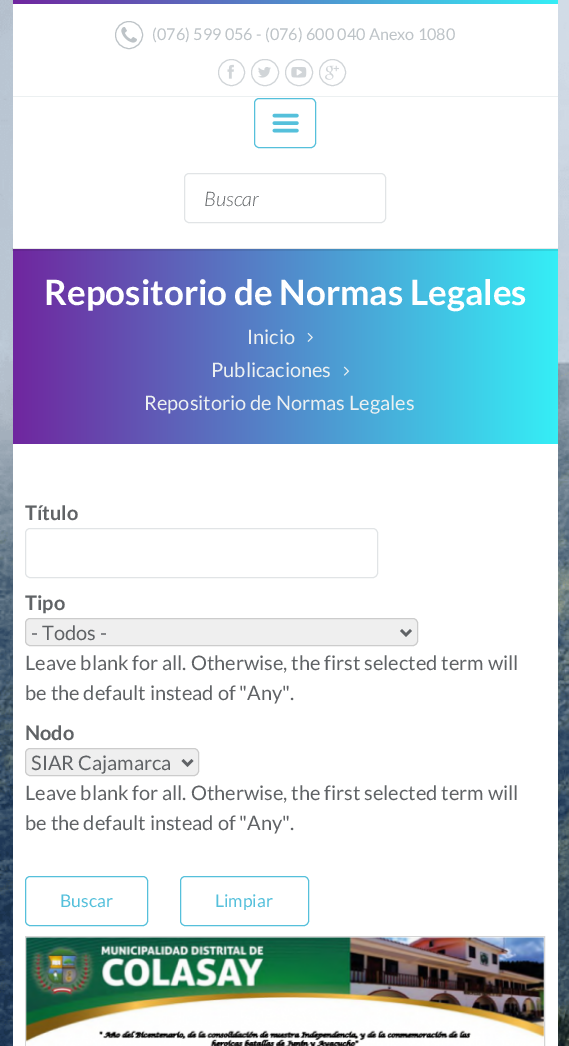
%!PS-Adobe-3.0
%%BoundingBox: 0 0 569 1046
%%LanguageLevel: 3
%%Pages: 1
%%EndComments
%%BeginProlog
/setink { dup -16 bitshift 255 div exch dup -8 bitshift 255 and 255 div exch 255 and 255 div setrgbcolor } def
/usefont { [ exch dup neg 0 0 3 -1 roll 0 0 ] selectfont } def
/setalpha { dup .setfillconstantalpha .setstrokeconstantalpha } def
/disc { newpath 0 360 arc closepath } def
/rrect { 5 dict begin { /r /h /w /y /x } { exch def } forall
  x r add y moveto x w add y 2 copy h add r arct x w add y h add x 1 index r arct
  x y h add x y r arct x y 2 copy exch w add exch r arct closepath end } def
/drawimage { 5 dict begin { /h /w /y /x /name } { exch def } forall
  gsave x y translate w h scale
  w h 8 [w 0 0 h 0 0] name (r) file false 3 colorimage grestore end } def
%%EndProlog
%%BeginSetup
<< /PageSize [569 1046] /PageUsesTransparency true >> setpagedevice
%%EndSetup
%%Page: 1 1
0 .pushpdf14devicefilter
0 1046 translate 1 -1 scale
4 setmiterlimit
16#FFFFFF setink
0 0 569 1046 rectfill
(img1.raw) 0 0 569 1046 drawimage
13 4 545 1042 rectfill
gsave 13 0 moveto 558 0 lineto 558 4 lineto 13 4 lineto closepath clip newpath
<< /ShadingType 2 /ColorSpace /DeviceRGB /Coords [13 1.9 558 1.9] /Extend [true true] /Function << /FunctionType 2 /Domain [0 1] /C0 [0.439 0.149 0.624] /C1 [0.208 0.933 0.965] /N 1 >> >> shfill grestore
16#BDC3C7 setink
129 35 13.5 disc stroke
(img2.raw) 121 27 16 16 drawimage
/Lato-Regular 16.25 usefont
152 40 moveto (\(076\) 599 056 - \(076\) 600 040 Anexo 1080) show
16#D1D5D8 setink
231.5 72.5 13 disc stroke
(img3.raw) 227 64 7 15 drawimage
251.5 59.5 27 26 13 rrect stroke
(img4.raw) 258 67 13 11 drawimage
285.5 59.5 27 26 13 rrect stroke
(img5.raw) 291 67 16 11 drawimage
332.5 72.5 13 disc stroke
(img6.raw) 325 65 14 15 drawimage
16#ECF0F1 setink
13 96 545 1 rectfill
16#55C0DB setink
254.5 98.5 61 49 4.5 rrect stroke
(img7.raw) 272 113 27 20 drawimage
16#E1E4E6 setink
184.5 173.5 201 49 4.5 rrect stroke
/Lato-LightItalic 20 usefont
16#606366 setink
204 206 moveto (Buscar) show
gsave 13 249 moveto 558 249 lineto 558 444 lineto 13 444 lineto closepath clip newpath
<< /ShadingType 2 /ColorSpace /DeviceRGB /Coords [13 346 558 346] /Extend [true true] /Function << /FunctionType 2 /Domain [0 1] /C0 [0.439 0.149 0.624] /C1 [0.208 0.933 0.965] /N 1 >> >> shfill grestore
0.09 setalpha
16#000000 setink
12 248 546 3 rectfill
/Lato-Bold 35 usefont
1 setalpha
16#FFFFFF setink
44 305 moveto (Repositorio de Normas Legales) show
/Lato-Regular 20 usefont
16#ECF0F1 setink
247 344 moveto (Inicio) show
(img8.raw) 307 332 6 10 drawimage
211 377 moveto (Publicaciones) show
(img9.raw) 343 366 7 10 drawimage
144 410 moveto (Repositorio de Normas Legales) show
/Lato-Bold 20 usefont
16#606366 setink
25 520 moveto (Título) show
16#E1E4E6 setink
25.5 528.5 352 49 4.5 rrect stroke
16#606366 setink
25 610 moveto (Tipo) show
16#EFEFEF setink
25.5 618.5 392 27 4.5 rrect gsave fill grestore
16#CCCCCC setink
stroke
16#606366 setink
2.5 setlinewidth
401 630 moveto 406 635 lineto 411 630 lineto stroke
/Lato-Regular 20 usefont
[
    [(- Todos -) 31 640]
    [(Leave blank for all. Otherwise, the first selected term will) 25 670]
    [(be the default instead of "Any".) 25 700]
] { aload pop moveto show } forall
/Lato-Bold 20 usefont
25 740 moveto (Nodo) show
16#EFEFEF setink
25.5 748.5 173 27 4.5 rrect gsave fill grestore
16#CCCCCC setink
1 setlinewidth
stroke
16#606366 setink
2.5 setlinewidth
182.5 760 moveto 187.5 765 lineto 192.5 760 lineto stroke
/Lato-Regular 20 usefont
[
    [(SIAR Cajamarca) 31 770]
    [(Leave blank for all. Otherwise, the first selected term will) 25 800]
    [(be the default instead of "Any".) 25 830]
] { aload pop moveto show } forall
16#55C0DB setink
1 setlinewidth
25.5 876.5 122 49 4.5 rrect stroke
/Lato-Regular 17.5 usefont
60 907 moveto (Buscar) show
180.5 876.5 128 49 4.5 rrect stroke
215 907 moveto (Limpiar) show
16#D5D5D5 setink
25.5 936.5 519 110 rectstroke
(img10.raw) 26 937 518 109 drawimage
.poppdf14devicefilter showpage
%%EOF
